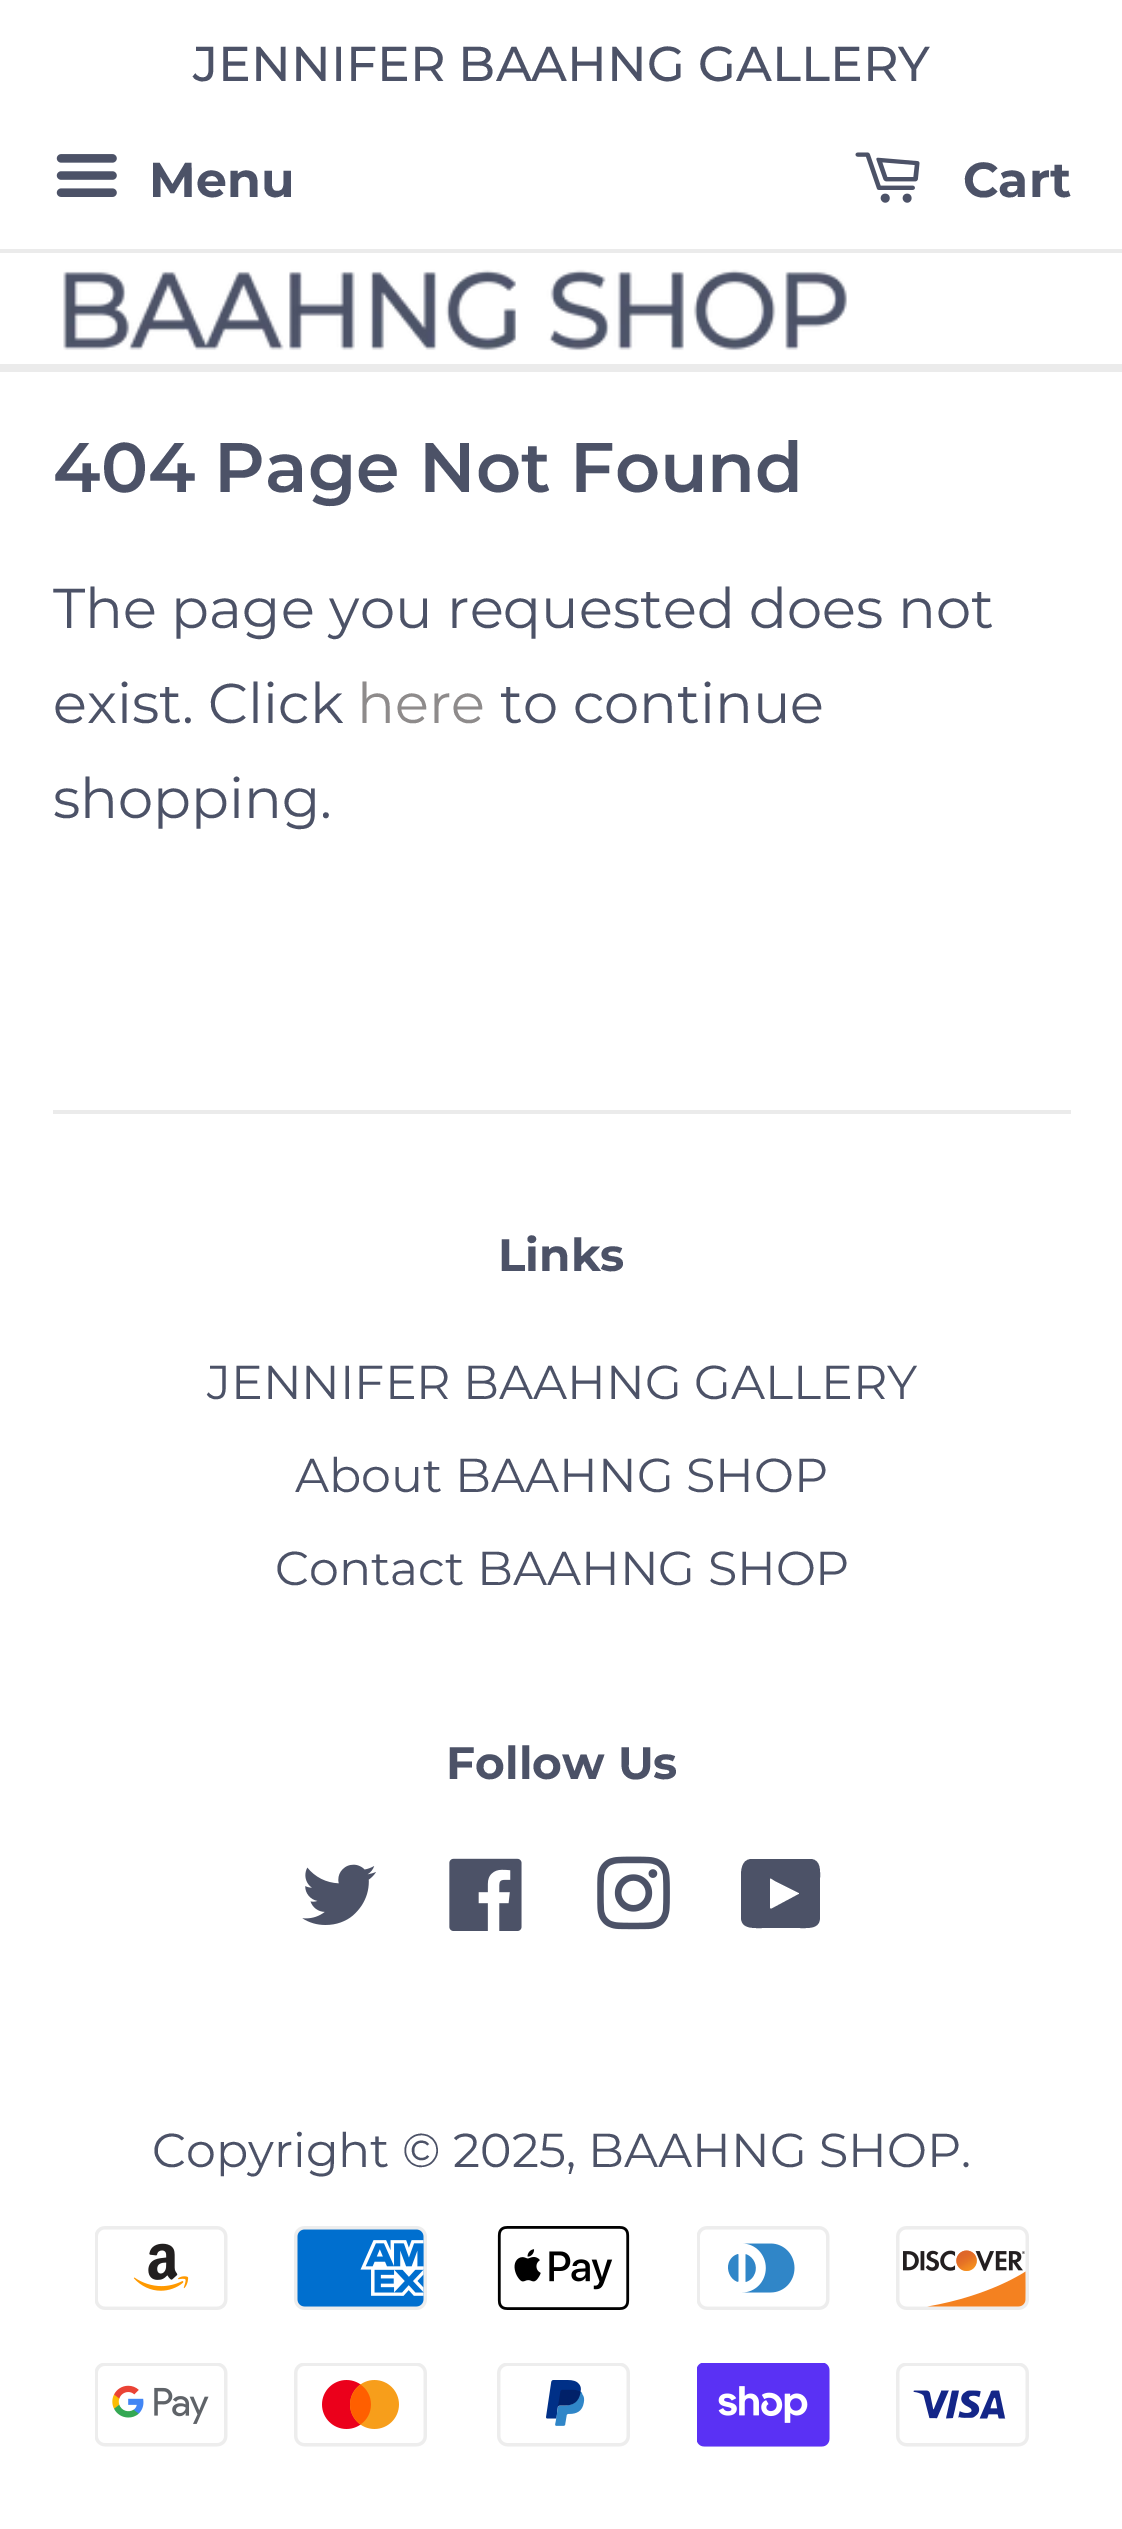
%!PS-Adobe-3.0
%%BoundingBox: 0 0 1122 2529
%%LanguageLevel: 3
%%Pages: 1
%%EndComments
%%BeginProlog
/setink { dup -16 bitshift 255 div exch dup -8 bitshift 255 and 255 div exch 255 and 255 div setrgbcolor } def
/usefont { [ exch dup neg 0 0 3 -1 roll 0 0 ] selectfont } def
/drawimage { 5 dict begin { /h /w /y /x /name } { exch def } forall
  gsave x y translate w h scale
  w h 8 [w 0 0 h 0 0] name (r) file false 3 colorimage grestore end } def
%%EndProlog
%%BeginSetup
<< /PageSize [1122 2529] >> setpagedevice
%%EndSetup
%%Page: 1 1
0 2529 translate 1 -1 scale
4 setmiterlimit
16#FFFFFF setink
0 0 1122 2529 rectfill
16#EBEBEB setink
0 364 1122 8 rectfill
0 249 1122 4 rectfill
/Montserrat-Medium 49 usefont
16#4C5267 setink
193 81 moveto (JENNIFER BAAHNG GALLERY) show
(img1.raw) 56 154 61 43 drawimage
/Montserrat-Bold 49 usefont
149 197 moveto (Menu) show
(img2.raw) 855 152 65 51 drawimage
963 197 moveto (Cart) show
(img3.raw) 63 269 784 82 drawimage
/Montserrat-SemiBold 70 usefont
53 492 moveto (404 Page Not Found) show
/Montserrat-Regular 56 usefont
53 628 moveto (The page you requested does not) show
53 723 moveto (exist. Click) show
16#8E8B8B setink
357 723 moveto (here) show
16#4C5267 setink
500 723 moveto (to continue) show
53 818 moveto (shopping.) show
16#EBEBEB setink
53 1110 1018 4 rectfill
/Montserrat-Bold 45.5 usefont
16#4C5267 setink
498 1271 moveto (Links) show
/Montserrat-Regular 47.6 usefont
[
    [(JENNIFER BAAHNG GALLERY) 207 1399]
    [(About BAAHNG SHOP) 295 1492]
    [(Contact BAAHNG SHOP) 275 1585]
] { aload pop moveto show } forall
/Montserrat-Bold 45.5 usefont
446 1779 moveto (Follow Us) show
(img4.raw) 302 1864 74 61 drawimage
(img5.raw) 449 1858 73 73 drawimage
(img6.raw) 597 1856 73 74 drawimage
741 1917 moveto 741 1929 753 1928 762 1928 curveto 800 1928 lineto 809 1928 820 1929 820 1917 curveto 820 1878 lineto 820 1871 821 1860 811 1859 curveto 751 1859 lineto 741 1860 741 1871 741 1878 curveto closepath 770 1908 moveto 770 1884 lineto 770 1877 769 1877 775 1881 curveto 799 1893 lineto 799 1894 lineto 771 1909 lineto closepath fill
/Montserrat-Regular 47.6 usefont
152 2167 moveto (Copyright © 2025, BAAHNG SHOP.) show
(img7.raw) 95 2226 133 84 drawimage
(img8.raw) 294 2226 133 84 drawimage
(img9.raw) 497 2226 133 84 drawimage
(img10.raw) 697 2226 133 84 drawimage
(img11.raw) 896 2226 133 84 drawimage
(img12.raw) 95 2363 133 84 drawimage
(img13.raw) 294 2363 133 84 drawimage
(img14.raw) 497 2363 133 84 drawimage
(img15.raw) 697 2363 133 84 drawimage
(img16.raw) 896 2363 133 84 drawimage
showpage
%%EOF
